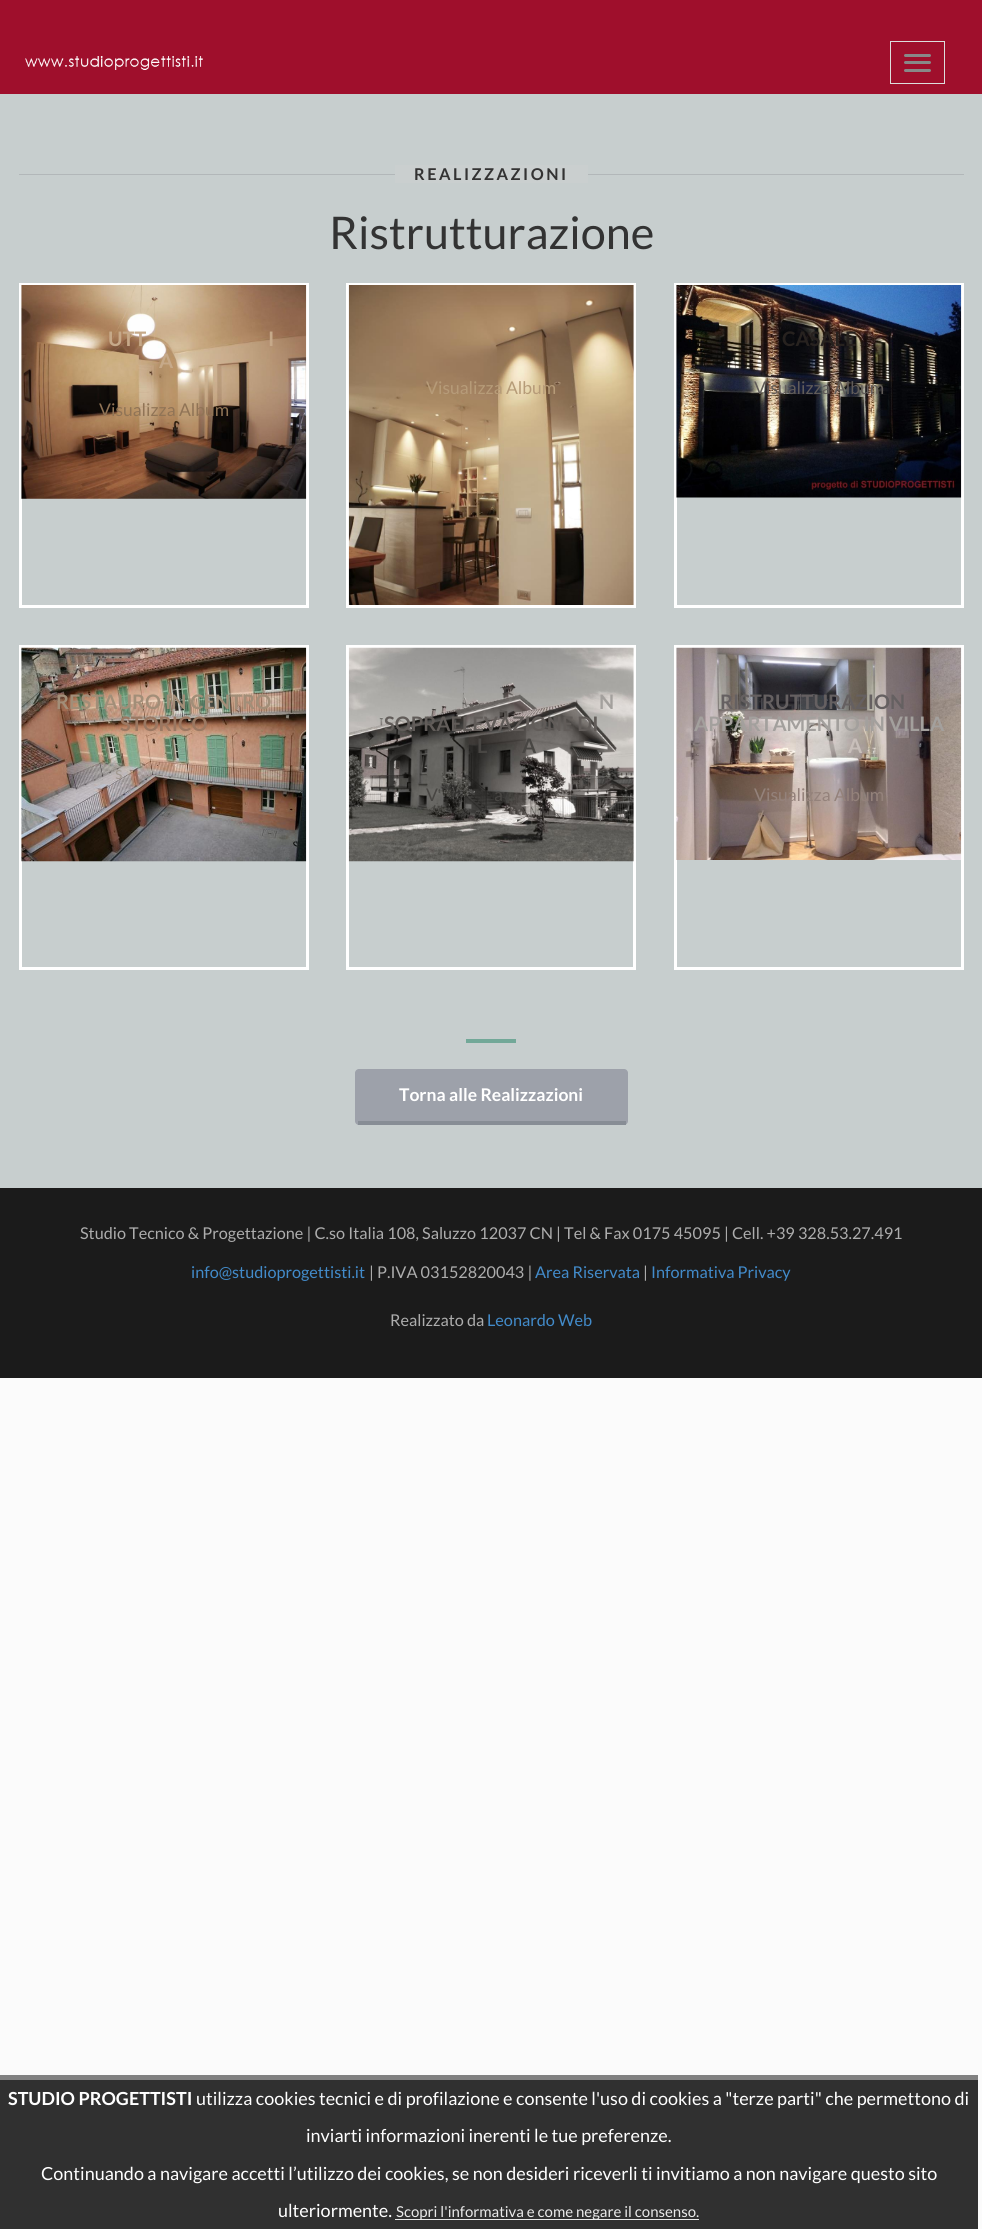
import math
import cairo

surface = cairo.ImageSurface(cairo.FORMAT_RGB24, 982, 2229)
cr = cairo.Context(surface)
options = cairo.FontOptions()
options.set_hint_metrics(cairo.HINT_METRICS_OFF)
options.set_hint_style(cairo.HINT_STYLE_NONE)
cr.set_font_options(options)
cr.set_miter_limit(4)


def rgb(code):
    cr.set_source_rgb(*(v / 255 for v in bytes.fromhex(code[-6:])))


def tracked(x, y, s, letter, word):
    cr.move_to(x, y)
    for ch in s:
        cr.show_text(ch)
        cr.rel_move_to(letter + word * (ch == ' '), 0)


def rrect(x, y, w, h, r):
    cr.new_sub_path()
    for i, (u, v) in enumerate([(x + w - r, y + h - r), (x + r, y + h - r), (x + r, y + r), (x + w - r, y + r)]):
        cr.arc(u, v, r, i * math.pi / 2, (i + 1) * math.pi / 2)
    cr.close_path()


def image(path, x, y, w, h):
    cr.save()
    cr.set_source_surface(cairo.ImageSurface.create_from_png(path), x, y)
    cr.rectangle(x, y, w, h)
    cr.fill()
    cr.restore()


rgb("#fbfbfb")
cr.paint()
rgb("#9f0f2c")
cr.rectangle(0, 0, 982, 94)
cr.fill()
image("img/1.png", 25, 56, 178, 14)
cr.rectangle(890.5, 41.5, 54, 42)
rgb("#dddddd")
cr.set_line_width(1)
cr.stroke()
rgb("#888888")
rrect(904, 54, 27, 3, 1.5)
cr.fill()
rrect(904, 61, 27, 3, 1.5)
cr.fill()
rrect(904, 69, 27, 3, 1.5)
cr.fill()
for x, y, w, h, color in [
    (0, 94, 982, 1094, "#c7cece"),
    (19, 174, 945, 1, "#b2b7b9"),
    (395, 165, 193, 18, "#cacfcf"),
]:
    rgb(color)
    cr.rectangle(x, y, w, h)
    cr.fill()
cr.rectangle(20.5, 284.5, 287, 322)
rgb("#ffffff")
cr.set_line_width(3)
cr.stroke()
image("img/2.png", 21, 285, 286, 214)
cr.rectangle(347.5, 284.5, 287, 322)
cr.stroke()
image("img/3.png", 348, 285, 286, 320)
cr.rectangle(675.5, 284.5, 287, 322)
cr.stroke()
image("img/4.png", 676, 285, 286, 213)
cr.rectangle(20.5, 646.5, 287, 322)
cr.stroke()
image("img/5.png", 21, 647, 286, 215)
cr.rectangle(347.5, 646.5, 287, 322)
cr.stroke()
image("img/6.png", 348, 647, 286, 215)
cr.rectangle(675.5, 646.5, 287, 322)
cr.stroke()
image("img/7.png", 676, 647, 286, 213)
rgb("#72a898")
cr.rectangle(466, 1039, 50, 4)
cr.fill()
rgb("#9da1aa")
rrect(355, 1069, 273, 56, 4)
cr.fill()
for x, y, w, h, color in [
    (358, 1121, 268, 4, "#878d95"),
    (0, 1188, 982, 190, "#1b1b1b"),
    (0, 2080, 978, 149, "#303030"),
    (0, 2075, 978, 5, "#818181"),
    (395, 2219, 304, 1, "#eaeaea"),
]:
    rgb(color)
    cr.rectangle(x, y, w, h)
    cr.fill()
cr.select_font_face("Lato", cairo.FONT_SLANT_NORMAL, cairo.FONT_WEIGHT_BOLD)
cr.set_font_size(16.25)
rgb("#333333")
tracked(414, 180, "REALIZZAZIONI", 2.5, 0)
cr.select_font_face("Lato")
cr.set_font_size(45)
cr.move_to(329, 249)
cr.show_text("Ristrutturazione")
cr.select_font_face("Lato", cairo.FONT_SLANT_NORMAL, cairo.FONT_WEIGHT_BOLD)
cr.set_font_size(20)
rgb("#c6a989")
for x, y, s in [
    (108, 346, "UTT"),
    (268, 346, "I"),
    (159, 368, "A"),
]:
    cr.move_to(x, y)
    cr.show_text(s)
cr.select_font_face("Lato")
cr.set_font_size(17.5)
rgb("#907456")
cr.move_to(99, 416)
cr.show_text("Visualizza Album")
rgb("#b69b78")
cr.move_to(426, 394)
cr.show_text("Visualizza Album")
cr.select_font_face("Lato", cairo.FONT_SLANT_NORMAL, cairo.FONT_WEIGHT_BOLD)
cr.set_font_size(20)
rgb("#27221f")
cr.move_to(782, 346)
cr.show_text("CASALE")
cr.select_font_face("Lato")
cr.set_font_size(17.5)
rgb("#615c59")
cr.move_to(754, 394)
cr.show_text("Visualizza Album")
cr.select_font_face("Lato", cairo.FONT_SLANT_NORMAL, cairo.FONT_WEIGHT_BOLD)
cr.set_font_size(20)
rgb("#a28e78")
cr.move_to(56, 709)
cr.show_text("RESTAURO IN CENTRO")
rgb("#9b7862")
cr.move_to(120, 731)
cr.show_text("STORICO")
cr.select_font_face("Lato")
cr.set_font_size(17.5)
rgb("#a29991")
cr.move_to(115, 779)
cr.show_text("s")
cr.select_font_face("Lato", cairo.FONT_SLANT_NORMAL, cairo.FONT_WEIGHT_BOLD)
cr.set_font_size(20)
rgb("#a3a09d")
cr.move_to(599, 709)
cr.show_text("N")
rgb("#615c59")
cr.move_to(384, 731)
cr.show_text("SOPRAELEVAZIONE DI")
rgb("#484643")
cr.move_to(477, 753)
cr.show_text("L")
cr.move_to(522, 753)
cr.show_text("A")
cr.select_font_face("Lato")
cr.set_font_size(17.5)
cr.move_to(426, 801)
cr.show_text("V")
cr.move_to(494, 801)
cr.show_text("a")
cr.select_font_face("Lato", cairo.FONT_SLANT_NORMAL, cairo.FONT_WEIGHT_BOLD)
cr.set_font_size(20)
rgb("#656061")
cr.move_to(720, 709)
cr.show_text("RISTRUTTURAZION")
rgb("#a3a09d")
cr.move_to(694, 731)
cr.show_text("APPARTAMENTO IN VILLA")
rgb("#c8bfba")
cr.move_to(848, 753)
cr.show_text("A")
cr.select_font_face("Lato")
cr.set_font_size(17.5)
rgb("#94827b")
cr.move_to(754, 801)
cr.show_text("Visualizza Album")
cr.select_font_face("Lato", cairo.FONT_SLANT_NORMAL, cairo.FONT_WEIGHT_BOLD)
rgb("#ffffff")
cr.move_to(399, 1101)
cr.show_text("Torna alle Realizzazioni")
cr.select_font_face("Lato")
cr.set_font_size(16.25)
rgb("#adadad")
cr.move_to(80, 1239)
cr.show_text("Studio Tecnico & Progettazione | C.so Italia 108, Saluzzo 12037 CN | Tel & Fax 0175 45095 | Cell. +39 328.53.27.491")
rgb("#428bca")
cr.move_to(191, 1278)
cr.show_text("info@studioprogettisti.it")
rgb("#adadad")
cr.move_to(369, 1278)
cr.show_text("| P.IVA 03152820043 |")
rgb("#428bca")
cr.move_to(535, 1278)
cr.show_text("Area Riservata")
rgb("#adadad")
cr.move_to(643, 1278)
cr.show_text("|")
rgb("#428bca")
cr.move_to(651, 1278)
cr.show_text("Informativa Privacy")
rgb("#adadad")
cr.move_to(390, 1326)
cr.show_text("Realizzato da")
rgb("#428bca")
cr.move_to(487, 1326)
cr.show_text("Leonardo Web")
cr.select_font_face("Lato", cairo.FONT_SLANT_NORMAL, cairo.FONT_WEIGHT_BOLD)
cr.set_font_size(18)
rgb("#ffffff")
cr.move_to(8, 2105)
cr.show_text("STUDIO PROGETTISTI")
cr.select_font_face("Lato")
for x, y, s in [
    (196, 2105, "utilizza cookies tecnici e di profilazione e consente l'uso di cookies a \"terze parti\" che permettono di"),
    (306, 2142, "inviarti informazioni inerenti le tue preferenze."),
    (41, 2180, "Continuando a navigare accetti l’utilizzo dei cookies, se non desideri riceverli ti invitiamo a non navigare questo sito"),
    (278, 2217, "ulteriormente."),
]:
    cr.move_to(x, y)
    cr.show_text(s)
cr.set_font_size(15)
rgb("#eaeaea")
cr.move_to(396, 2217)
cr.show_text("Scopri l'informativa e come negare il consenso.")
surface.write_to_png("page.png")
